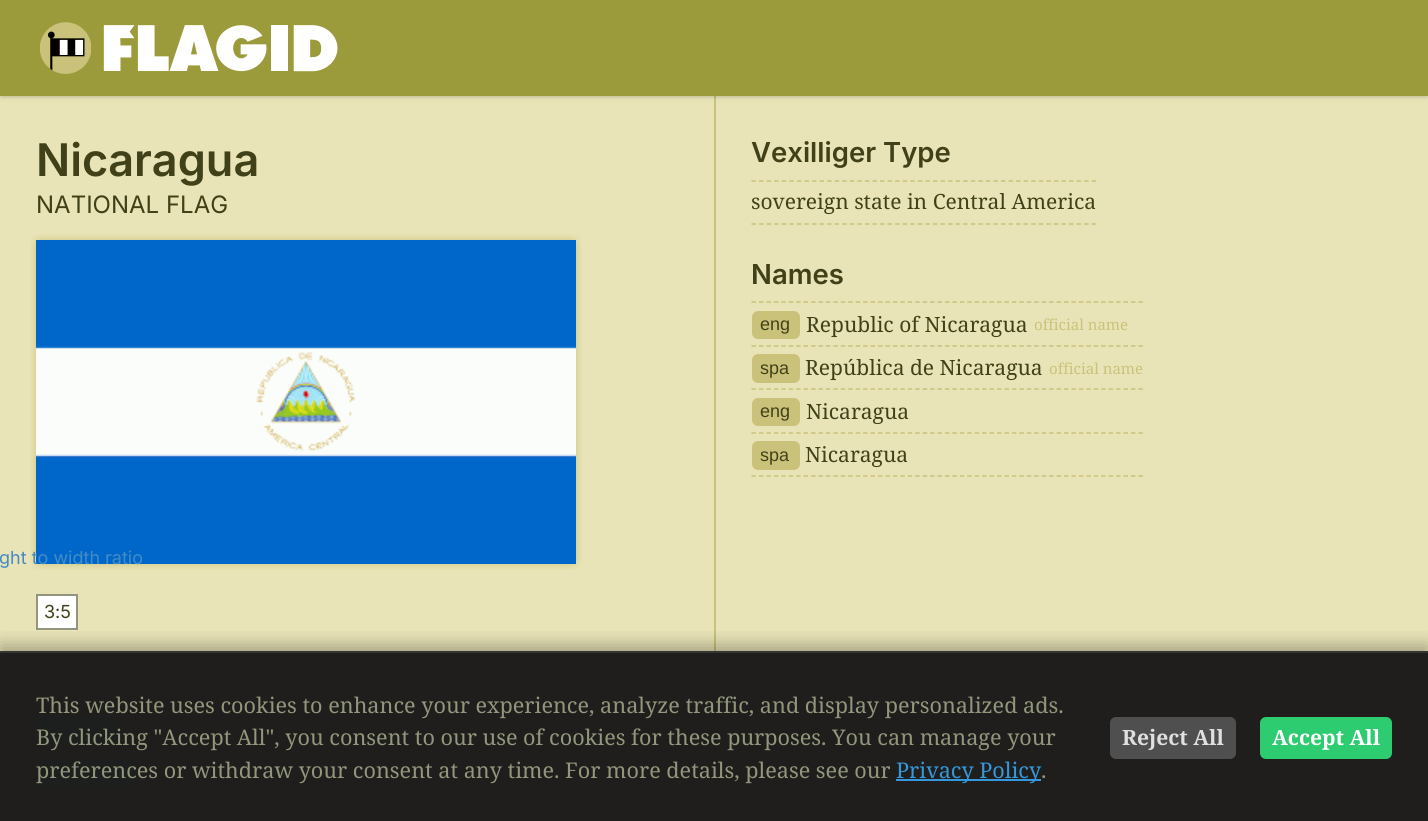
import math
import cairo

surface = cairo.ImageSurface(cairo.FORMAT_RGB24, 1428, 821)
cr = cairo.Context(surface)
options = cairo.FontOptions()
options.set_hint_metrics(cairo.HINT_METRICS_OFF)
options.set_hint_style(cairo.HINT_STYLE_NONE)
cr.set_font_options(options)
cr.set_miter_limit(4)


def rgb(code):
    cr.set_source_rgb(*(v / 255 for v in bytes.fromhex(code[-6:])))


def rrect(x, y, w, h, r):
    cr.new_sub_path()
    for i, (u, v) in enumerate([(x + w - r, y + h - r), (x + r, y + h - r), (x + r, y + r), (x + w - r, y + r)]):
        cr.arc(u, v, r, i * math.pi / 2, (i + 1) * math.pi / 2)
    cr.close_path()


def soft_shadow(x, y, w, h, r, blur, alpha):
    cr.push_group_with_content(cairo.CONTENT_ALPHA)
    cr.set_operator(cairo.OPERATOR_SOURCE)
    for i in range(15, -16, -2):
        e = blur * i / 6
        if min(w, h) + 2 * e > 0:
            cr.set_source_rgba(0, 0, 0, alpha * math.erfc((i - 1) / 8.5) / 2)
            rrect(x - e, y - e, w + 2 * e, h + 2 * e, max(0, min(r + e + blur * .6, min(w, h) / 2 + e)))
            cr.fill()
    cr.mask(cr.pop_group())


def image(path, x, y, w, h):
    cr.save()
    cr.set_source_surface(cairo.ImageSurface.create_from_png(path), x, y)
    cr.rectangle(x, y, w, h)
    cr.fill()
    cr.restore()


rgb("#cac27b")
cr.paint()
rgb("#e9e4b7")
cr.rectangle(0, 96, 714, 555)
cr.fill()
cr.rectangle(716, 96, 712, 555)
cr.fill()
rgb("#000000")
soft_shadow(2, 3, 1425, 93, 0, 1.5, 0.1)
soft_shadow(0, 2, 1428, 96, 0, 2, 0.1)
rgb("#9c9b3c")
cr.rectangle(0, 0, 1428, 96)
cr.fill()
image("img/1.png", 40, 22, 298, 52)
for x, y, w, h, color in [
    (714, 653, 2, 168, "#1d1d19"),
    (714, 651, 2, 2, "#343430"),
    (0, 653, 714, 168, "#1f1e1c"),
    (0, 651, 714, 2, "#353533"),
]:
    rgb(color)
    cr.rectangle(x, y, w, h)
    cr.fill()
image("img/2.png", 30, 234, 552, 336)
rgb("#ffffff")
cr.rectangle(37, 595, 40, 34)
cr.fill_preserve()
rgb("#91967c")
cr.stroke()
rgb("#1c1f1d")
rrect(36, 716, 84, 28, 6)
cr.fill()
rrect(36, 759, 101, 29, 6)
cr.fill()
rgb("#1f1e1c")
cr.rectangle(716, 653, 712, 168)
cr.fill()
rgb("#353533")
cr.rectangle(716, 651, 712, 2)
cr.fill()
cr.new_path()
cr.move_to(751.5, 181)
cr.line_to(1096.5, 181)
rgb("#cac27b")
cr.set_line_width(1.5)
cr.set_dash([4.5, 3.06])
cr.stroke()
cr.new_path()
cr.move_to(751.5, 224)
cr.line_to(1096.5, 224)
cr.stroke()
cr.new_path()
cr.move_to(751.5, 302)
cr.line_to(1143, 302)
cr.set_dash([4.5, 2.94])
cr.stroke()
cr.new_path()
cr.move_to(751.5, 346)
cr.line_to(1143, 346)
cr.stroke()
rrect(752, 311, 48, 28, 6)
cr.fill()
cr.new_path()
cr.move_to(751.5, 389)
cr.line_to(1143, 389)
cr.stroke()
rrect(752, 354, 48, 29, 6)
cr.fill()
cr.new_path()
cr.move_to(751.5, 433)
cr.line_to(1143, 433)
cr.stroke()
rrect(752, 398, 48, 28, 6)
cr.fill()
cr.new_path()
cr.move_to(751.5, 476)
cr.line_to(1143, 476)
cr.stroke()
rrect(752, 441, 48, 29, 6)
cr.fill()
cr.save()
cr.rectangle(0, 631, 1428, 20)
cr.clip()
rgb("#000000")
soft_shadow(0, 645, 1428, 171, 0, 9, 0.3)
cr.restore()
rgb("#3498db")
cr.rectangle(896, 779, 145, 2)
cr.fill()
rgb("#4f4f4f")
rrect(1110, 717, 126, 42, 6)
cr.fill()
rgb("#2ecc71")
rrect(1260, 717, 132, 42, 6)
cr.fill()
cr.select_font_face("Inter SemiBold")
cr.set_font_size(45)
rgb("#414119")
cr.move_to(36, 176)
cr.show_text("Nicaragua")
cr.select_font_face("Inter")
cr.set_font_size(24)
cr.move_to(36, 213)
cr.show_text("NATIONAL FLAG")
cr.set_font_size(18)
rgb("#448bc3")
cr.move_to(-1, 564)
cr.show_text("ght to width ratio")
rgb("#414119")
cr.move_to(44, 618)
cr.show_text("3:5")
cr.select_font_face("Inter SemiBold")
cr.set_font_size(27.5)
cr.move_to(751, 162)
cr.show_text("Vexilliger Type")
cr.select_font_face("Noto Serif")
cr.set_font_size(21)
cr.move_to(751, 209)
cr.show_text("sovereign state in Central America")
cr.select_font_face("Inter SemiBold")
cr.set_font_size(27.5)
cr.move_to(751, 284)
cr.show_text("Names")
cr.select_font_face("Liberation Sans")
cr.set_font_size(18)
cr.move_to(760, 330)
cr.show_text("eng")
cr.select_font_face("Noto Serif")
cr.set_font_size(21)
cr.move_to(806, 332)
cr.show_text("Republic of Nicaragua")
cr.set_font_size(15)
rgb("#cac27b")
cr.move_to(1034, 330)
cr.show_text("official name")
cr.select_font_face("Liberation Sans")
cr.set_font_size(18)
rgb("#414119")
cr.move_to(760, 374)
cr.show_text("spa")
cr.select_font_face("Noto Serif")
cr.set_font_size(21)
cr.move_to(805, 375)
cr.show_text("República de Nicaragua")
cr.set_font_size(15)
rgb("#cac27b")
cr.move_to(1049, 374)
cr.show_text("official name")
cr.select_font_face("Liberation Sans")
cr.set_font_size(18)
rgb("#414119")
cr.move_to(760, 417)
cr.show_text("eng")
cr.select_font_face("Noto Serif")
cr.set_font_size(21)
cr.move_to(806, 419)
cr.show_text("Nicaragua")
cr.select_font_face("Liberation Sans")
cr.set_font_size(18)
cr.move_to(760, 461)
cr.show_text("spa")
cr.select_font_face("Noto Serif")
cr.set_font_size(21)
cr.move_to(805, 462)
cr.show_text("Nicaragua")
cr.set_font_size(21.6)
rgb("#91967c")
for x, y, s in [
    (36, 713, "This website uses cookies to enhance your experience, analyze traffic, and display personalized ads."),
    (36, 745, "By clicking \"Accept All\", you consent to our use of cookies for these purposes. You can manage your"),
    (36, 778, "preferences or withdraw your consent at any time. For more details, please see our"),
]:
    cr.move_to(x, y)
    cr.show_text(s)
rgb("#3498db")
cr.move_to(896, 778)
cr.show_text("Privacy Policy")
rgb("#91967c")
cr.move_to(1041, 778)
cr.show_text(".")
cr.select_font_face("Noto Serif", cairo.FONT_SLANT_NORMAL, cairo.FONT_WEIGHT_BOLD)
cr.set_font_size(21)
rgb("#e0e0e0")
cr.move_to(1122, 745)
cr.show_text("Reject All")
rgb("#ffffff")
cr.move_to(1272, 745)
cr.show_text("Accept All")
surface.write_to_png("page.png")
